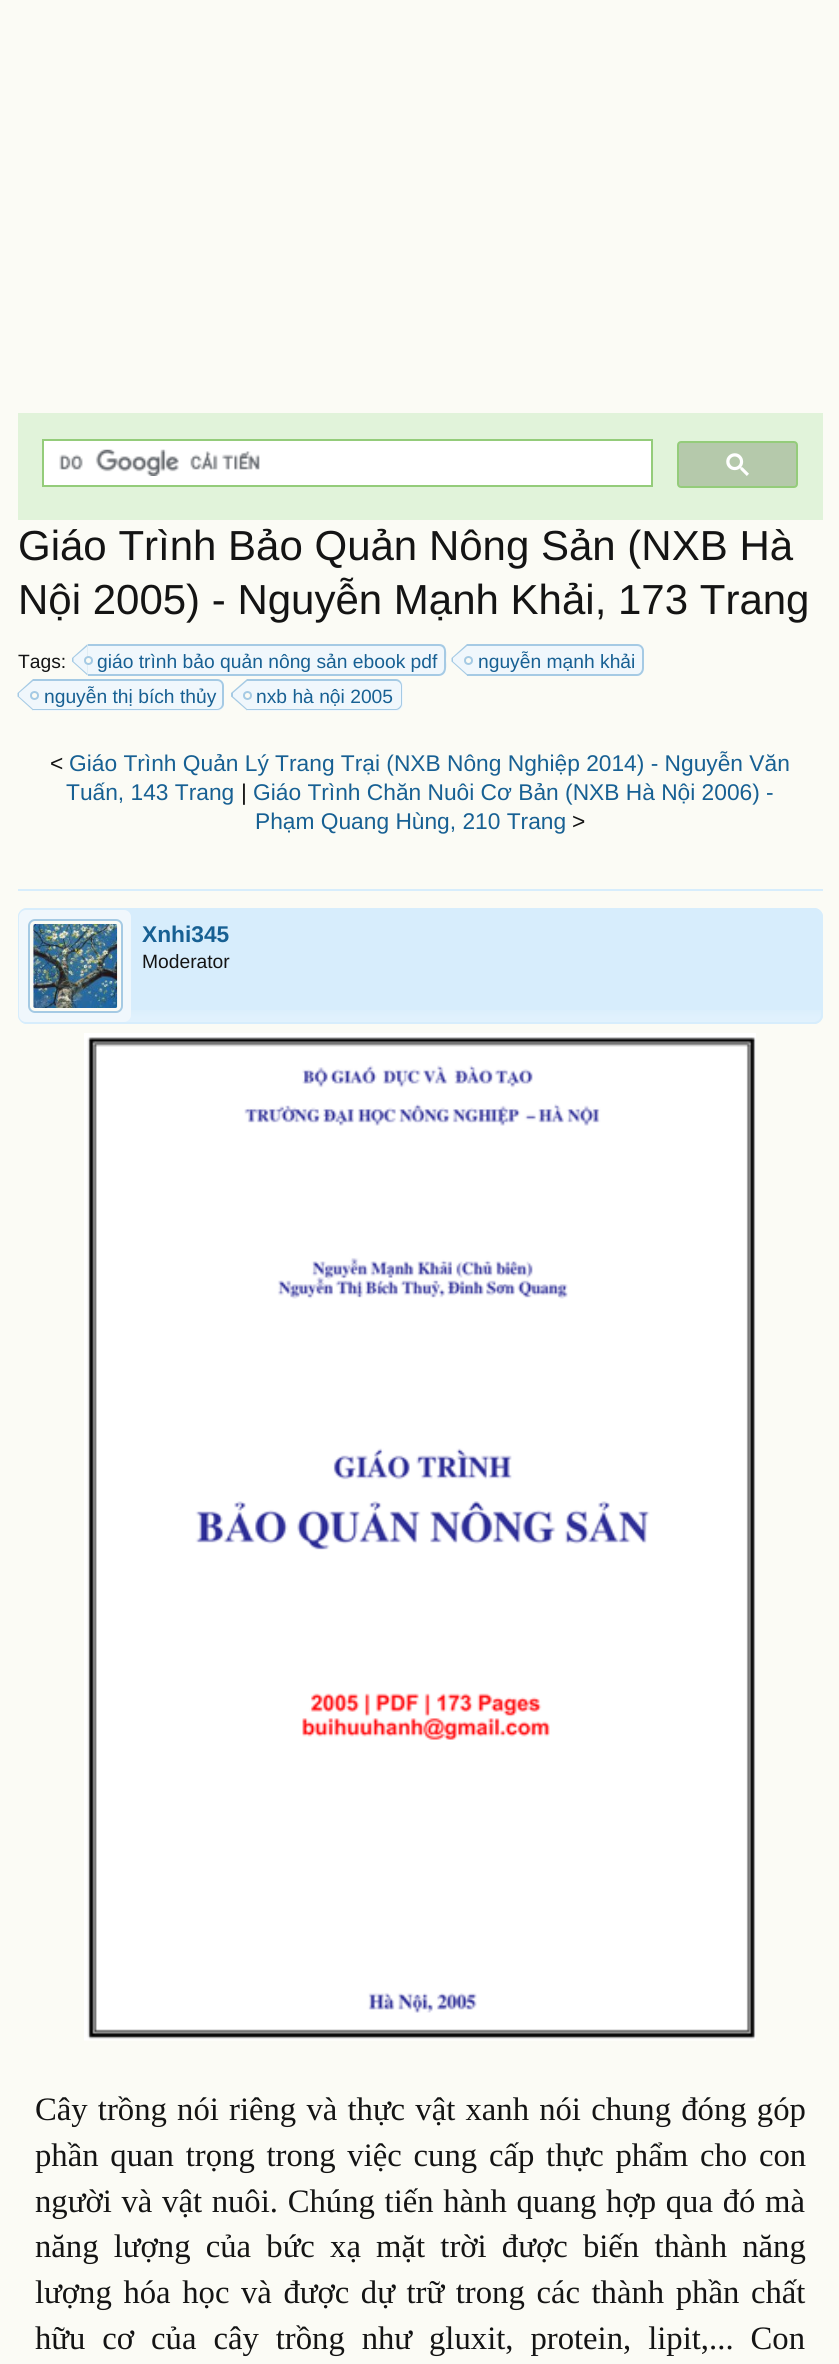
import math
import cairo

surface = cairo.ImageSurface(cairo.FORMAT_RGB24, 839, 2364)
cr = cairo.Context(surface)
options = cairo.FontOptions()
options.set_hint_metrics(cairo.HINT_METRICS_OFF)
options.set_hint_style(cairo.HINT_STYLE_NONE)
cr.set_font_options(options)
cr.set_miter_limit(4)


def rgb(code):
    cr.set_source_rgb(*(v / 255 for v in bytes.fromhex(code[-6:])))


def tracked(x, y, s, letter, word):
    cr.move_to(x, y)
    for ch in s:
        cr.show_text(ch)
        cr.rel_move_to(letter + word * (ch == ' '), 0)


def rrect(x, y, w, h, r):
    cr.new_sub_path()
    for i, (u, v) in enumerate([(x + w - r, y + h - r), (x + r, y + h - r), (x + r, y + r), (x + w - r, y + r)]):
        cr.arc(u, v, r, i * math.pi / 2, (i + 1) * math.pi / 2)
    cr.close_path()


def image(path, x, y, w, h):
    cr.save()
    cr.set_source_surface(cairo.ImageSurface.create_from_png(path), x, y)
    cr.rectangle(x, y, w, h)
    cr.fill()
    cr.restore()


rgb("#fbfbf5")
cr.paint()
rgb("#e1f3da")
cr.rectangle(18, 413, 805, 107)
cr.fill()
rgb("#ffffff")
cr.rectangle(43, 440, 609, 46)
cr.fill_preserve()
rgb("#94cc7a")
cr.stroke()
image("img/1.png", 59, 449, 201, 27)
rgb("#b5c9ab")
rrect(678, 442, 119, 45, 3)
cr.fill_preserve()
rgb("#94cc7a")
cr.stroke()
image("img/2.png", 726, 453, 23, 23)
rgb("#f0f7fc")
cr.new_path()
cr.move_to(88, 644)
cr.line_to(439, 644)
cr.curve_to(443, 644, 446, 647, 446, 651)
cr.line_to(446, 669)
cr.curve_to(446, 673, 443, 676, 439, 676)
cr.line_to(88, 676)
cr.close_path()
cr.fill()
rgb("#a5cae4")
cr.set_fill_rule(cairo.FILL_RULE_EVEN_ODD)
cr.new_path()
cr.move_to(88, 644)
cr.line_to(439, 644)
cr.curve_to(448, 644, 446, 654, 446, 660)
cr.curve_to(446, 665, 448, 675, 439, 676)
cr.line_to(88, 676)
cr.close_path()
cr.move_to(88, 646)
cr.line_to(439, 646)
cr.curve_to(442, 646, 444, 648, 444, 651)
cr.line_to(444, 668)
cr.curve_to(444, 671, 442, 674, 439, 674)
cr.line_to(88, 674)
cr.close_path()
cr.fill()
cr.set_fill_rule(cairo.FILL_RULE_WINDING)
cr.new_path()
cr.move_to(87.5, 644)
cr.line_to(87.5, 675.5)
cr.line_to(72, 661.5)
cr.line_to(72, 658)
cr.close_path()
cr.fill()
rgb("#f0f7fc")
cr.new_path()
cr.move_to(87.5, 646)
cr.line_to(87.5, 674)
cr.line_to(73.5, 661.5)
cr.line_to(73.5, 658)
cr.close_path()
cr.fill()
rgb("#fbfbf5")
cr.arc(88.5, 660.5, 3.5, 0, 2 * math.pi)
cr.fill_preserve()
rgb("#a5cae4")
cr.stroke()
rgb("#f0f7fc")
cr.new_path()
cr.move_to(467, 644)
cr.line_to(637, 644)
cr.curve_to(641, 644, 644, 647, 644, 651)
cr.line_to(644, 669)
cr.curve_to(644, 673, 641, 676, 637, 676)
cr.line_to(467, 676)
cr.close_path()
cr.fill()
rgb("#a5cae4")
cr.set_fill_rule(cairo.FILL_RULE_EVEN_ODD)
cr.new_path()
cr.move_to(467, 644)
cr.line_to(637, 644)
cr.curve_to(641, 644, 644, 647, 644, 651)
cr.line_to(644, 668)
cr.curve_to(644, 672, 641, 676, 637, 676)
cr.line_to(467, 676)
cr.close_path()
cr.move_to(467, 646)
cr.line_to(637, 646)
cr.curve_to(640, 646, 642, 648, 642, 651)
cr.line_to(642, 668)
cr.curve_to(642, 671, 640, 674, 637, 674)
cr.line_to(467, 674)
cr.close_path()
cr.fill()
cr.set_fill_rule(cairo.FILL_RULE_WINDING)
cr.new_path()
cr.move_to(467, 644)
cr.line_to(467, 675.5)
cr.line_to(451.5, 661.5)
cr.line_to(451.5, 658)
cr.close_path()
cr.fill()
rgb("#f0f7fc")
cr.new_path()
cr.move_to(467, 646)
cr.line_to(467, 674)
cr.line_to(453, 661.5)
cr.line_to(453, 658)
cr.close_path()
cr.fill()
rgb("#fbfbf5")
cr.arc(468.5, 660.5, 3.5, 0, 2 * math.pi)
cr.fill_preserve()
rgb("#a5cae4")
cr.stroke()
rgb("#f0f7fc")
cr.new_path()
cr.move_to(33, 679)
cr.line_to(217, 679)
cr.curve_to(221, 679, 224, 682, 224, 686)
cr.line_to(224, 704)
cr.curve_to(224, 708, 221, 711, 217, 711)
cr.line_to(33, 711)
cr.close_path()
cr.fill()
rgb("#a5cae4")
cr.set_fill_rule(cairo.FILL_RULE_EVEN_ODD)
cr.new_path()
cr.move_to(33, 679)
cr.line_to(217, 679)
cr.curve_to(221, 679, 224, 682, 224, 686)
cr.line_to(224, 704)
cr.curve_to(224, 707, 221, 710, 217, 710)
cr.line_to(33, 710)
cr.close_path()
cr.move_to(33, 681)
cr.line_to(217, 681)
cr.curve_to(220, 681, 222, 683, 222, 686)
cr.line_to(222, 704)
cr.curve_to(222, 706, 220, 709, 217, 709)
cr.line_to(33, 709)
cr.close_path()
cr.fill()
cr.set_fill_rule(cairo.FILL_RULE_WINDING)
cr.new_path()
cr.move_to(33, 679)
cr.line_to(33, 710.5)
cr.line_to(17.5, 696.5)
cr.line_to(17.5, 693)
cr.close_path()
cr.fill()
rgb("#f0f7fc")
cr.new_path()
cr.move_to(33, 681)
cr.line_to(33, 709)
cr.line_to(19, 696.5)
cr.line_to(19, 693)
cr.close_path()
cr.fill()
rgb("#fbfbf5")
cr.arc(34.5, 695.5, 3.5, 0, 2 * math.pi)
cr.fill_preserve()
rgb("#a5cae4")
cr.stroke()
rgb("#f0f7fc")
cr.new_path()
cr.move_to(247, 679)
cr.line_to(396, 679)
cr.curve_to(400, 679, 403, 682, 403, 686)
cr.line_to(403, 704)
cr.curve_to(403, 708, 400, 711, 396, 711)
cr.line_to(247, 711)
cr.close_path()
cr.fill()
rgb("#a5cae4")
cr.set_fill_rule(cairo.FILL_RULE_EVEN_ODD)
cr.new_path()
cr.move_to(247, 679)
cr.line_to(396, 679)
cr.curve_to(399, 679, 402, 682, 402, 686)
cr.line_to(402, 704)
cr.curve_to(402, 707, 399, 710, 396, 710)
cr.line_to(247, 710)
cr.close_path()
cr.move_to(247, 681)
cr.line_to(396, 681)
cr.curve_to(398, 681, 401, 683, 401, 686)
cr.line_to(401, 704)
cr.curve_to(401, 706, 398, 709, 396, 709)
cr.line_to(247, 709)
cr.close_path()
cr.fill()
cr.set_fill_rule(cairo.FILL_RULE_WINDING)
cr.new_path()
cr.move_to(247, 679)
cr.line_to(247, 710.5)
cr.line_to(231, 696.5)
cr.line_to(231, 693)
cr.close_path()
cr.fill()
rgb("#f0f7fc")
cr.new_path()
cr.move_to(247, 681)
cr.line_to(247, 709)
cr.line_to(233, 696.5)
cr.line_to(233, 693)
cr.close_path()
cr.fill()
rgb("#fbfbf5")
cr.arc(247.5, 695.5, 3.5, 0, 2 * math.pi)
cr.fill_preserve()
rgb("#a5cae4")
cr.stroke()
rgb("#d7edfc")
cr.rectangle(18, 889, 805, 2)
cr.fill()
rrect(18, 908, 805, 116, 9)
cr.fill()
image("img/3.png", 18, 1010, 803, 12)
rrect(19, 909, 803, 114, 8)
cr.stroke()
rgb("#f0f7fc")
rrect(19, 910, 112, 112, 7)
cr.fill()
rgb("#fbfbf5")
rrect(29, 920, 93, 92, 6)
cr.fill_preserve()
rgb("#a5cae4")
cr.stroke()
image("img/4.png", 33, 924, 85, 84)
image("img/5.png", 84, 1033, 672, 1008)
cr.select_font_face("Liberation Sans")
cr.set_font_size(42)
rgb("#141414")
cr.move_to(18, 560)
cr.show_text("Giáo Trình Bảo Quản Nông Sản (NXB Hà")
cr.move_to(18, 614)
cr.show_text("Nội 2005) - Nguyễn Mạnh Khải, 173 Trang")
cr.set_font_size(19.25)
cr.move_to(18, 668)
cr.show_text("Tags:")
rgb("#176093")
for x, y, s in [
    (97, 668, "giáo trình bảo quản nông sản ebook pdf"),
    (478, 668, "nguyễn mạnh khải"),
    (44, 703, "nguyễn thị bích thủy"),
    (256, 703, "nxb hà nội 2005"),
]:
    cr.move_to(x, y)
    cr.show_text(s)
cr.set_font_size(22.75)
rgb("#141414")
cr.move_to(50, 771)
cr.show_text("<")
rgb("#176093")
cr.move_to(69, 771)
cr.show_text("Giáo Trình Quản Lý Trang Trại (NXB Nông Nghiệp 2014) - Nguyễn Văn")
cr.move_to(66, 800)
cr.show_text("Tuấn, 143 Trang")
rgb("#141414")
cr.move_to(241, 800)
cr.show_text("|")
rgb("#176093")
cr.move_to(253, 800)
cr.show_text("Giáo Trình Chăn Nuôi Cơ Bản (NXB Hà Nội 2006) -")
cr.move_to(255, 829)
cr.show_text("Phạm Quang Hùng, 210 Trang")
rgb("#141414")
cr.move_to(572, 829)
cr.show_text(">")
cr.select_font_face("Liberation Sans", cairo.FONT_SLANT_NORMAL, cairo.FONT_WEIGHT_BOLD)
rgb("#176093")
cr.move_to(142, 942)
cr.show_text("Xnhi345")
cr.select_font_face("Liberation Sans")
cr.set_font_size(19.25)
rgb("#141414")
cr.move_to(142, 968)
cr.show_text("Moderator")
cr.select_font_face("Liberation Serif")
cr.set_font_size(32.7)
tracked(35, 2120, "Cây trồng nói riêng và thực vật xanh nói chung đóng góp", 0, 2)
tracked(35, 2166, "phần quan trọng trong việc cung cấp thực phẩm cho con", 0, 3.6)
tracked(35, 2212, "người và vật nuôi. Chúng tiến hành quang hợp qua đó mà", 0, 1.5)
tracked(35, 2257, "năng lượng của bức xạ mặt trời được biến thành năng", 0, 7)
tracked(35, 2303, "lượng hóa học và được dự trữ trong các thành phần chất", 0, 3.4)
tracked(35, 2349, "hữu cơ của cây trồng như gluxit, protein, lipit,... Con", 0, 8.75)
surface.write_to_png("page.png")
